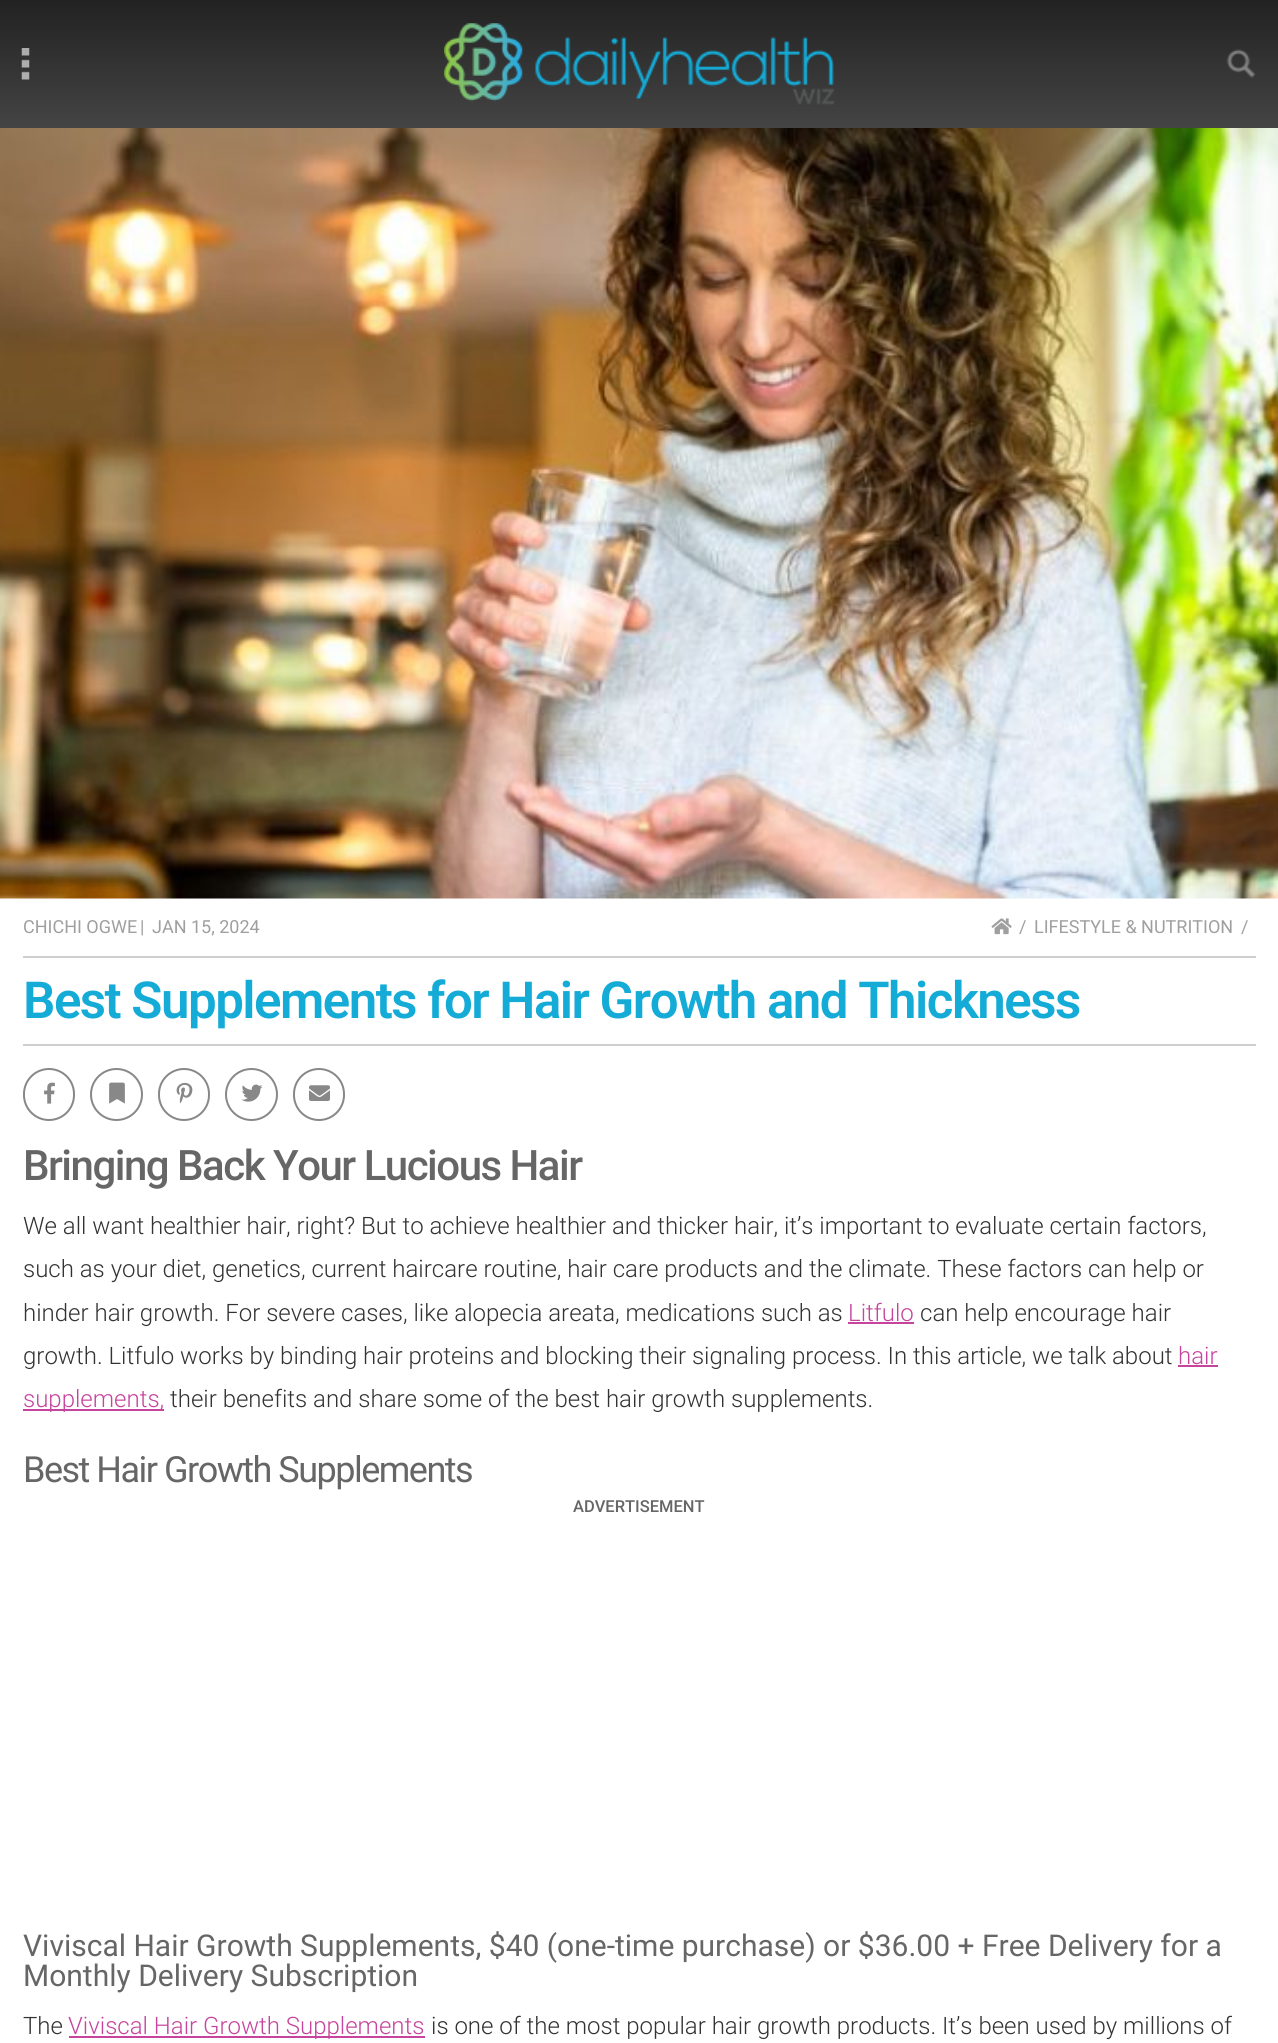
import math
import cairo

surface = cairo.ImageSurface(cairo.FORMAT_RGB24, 1278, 2043)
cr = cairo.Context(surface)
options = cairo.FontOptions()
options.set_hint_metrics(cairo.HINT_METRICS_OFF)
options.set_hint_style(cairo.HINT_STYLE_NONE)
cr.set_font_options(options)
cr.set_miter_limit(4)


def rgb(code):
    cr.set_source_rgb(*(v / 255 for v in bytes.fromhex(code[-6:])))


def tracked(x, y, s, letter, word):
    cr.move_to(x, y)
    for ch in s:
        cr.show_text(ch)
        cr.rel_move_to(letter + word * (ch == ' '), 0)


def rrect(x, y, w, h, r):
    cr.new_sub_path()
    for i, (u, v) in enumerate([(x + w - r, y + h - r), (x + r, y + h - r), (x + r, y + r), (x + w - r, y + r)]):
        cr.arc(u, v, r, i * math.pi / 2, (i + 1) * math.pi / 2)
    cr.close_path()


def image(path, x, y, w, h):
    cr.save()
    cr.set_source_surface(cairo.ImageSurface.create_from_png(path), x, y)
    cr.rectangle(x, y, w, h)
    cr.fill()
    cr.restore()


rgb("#ffffff")
cr.paint()
gradient = cairo.LinearGradient(639, 0, 639, 128)
gradient.add_color_stop_rgba(0, 0.133, 0.133, 0.133, 1)
gradient.add_color_stop_rgba(1, 0.267, 0.267, 0.267, 1)
cr.set_source(gradient)
cr.rectangle(0, 0, 1278, 128)
cr.fill()
image("img/1.png", 21, 48, 9, 32)
image("img/2.png", 444, 23, 390, 82)
image("img/3.png", 1226, 49, 30, 29)
image("img/4.png", 0, 128, 1278, 771)
image("img/5.png", 991, 918, 21, 17)
rgb("#cfcfcf")
cr.rectangle(23, 956, 1233, 2)
cr.fill()
cr.rectangle(23, 1044, 1233, 2)
cr.fill()
rrect(24, 1069, 50, 51, 25)
rgb("#888888")
cr.stroke()
image("img/6.png", 44, 1082, 11, 22)
cr.arc(116.5, 1094.5, 25.5, 0, 2 * math.pi)
cr.stroke()
image("img/7.png", 109, 1082, 16, 22)
rrect(159, 1069, 50, 51, 25)
cr.stroke()
image("img/8.png", 176, 1082, 17, 22)
cr.arc(251.5, 1094.5, 25.5, 0, 2 * math.pi)
cr.stroke()
image("img/9.png", 241, 1084, 22, 18)
rrect(294, 1069, 50, 51, 25)
cr.stroke()
image("img/10.png", 309, 1085, 21, 16)
for x, y, w, h, color in [
    (848, 1322, 66, 2, "#c6449d"),
    (1178, 1365, 40, 2, "#c6449d"),
    (23, 1409, 141, 2, "#c6449d"),
    (69, 2036, 356, 2, "#c6449d"),
]:
    rgb(color)
    cr.rectangle(x, y, w, h)
    cr.fill()
cr.select_font_face("Roboto")
cr.set_font_size(18)
rgb("#9f9f9f")
for x, y, s in [
    (23, 933, "CHICHI OGWE"),
    (140, 933, "|"),
    (152, 933, "JAN 15, 2024"),
    (1019, 933, "/"),
    (1034, 933, "LIFESTYLE & NUTRITION"),
    (1241, 933, "/"),
]:
    cr.move_to(x, y)
    cr.show_text(s)
cr.select_font_face("Roboto SemiBold")
cr.set_font_size(51)
rgb("#15abd7")
tracked(23, 1018, "Best Supplements for Hair Growth and Thickness", -1.5, 0)
cr.select_font_face("Roboto Medium")
cr.set_font_size(42)
rgb("#666666")
tracked(23, 1180, "Bringing Back Your Lucious Hair", -1.5, 0)
cr.select_font_face("Roboto Light")
cr.set_font_size(24)
rgb("#333333")
for x, y, s in [
    (23, 1234, "We all want healthier hair, right? But to achieve healthier and thicker hair, it’s important to evaluate certain factors,"),
    (23, 1277, "such as your diet, genetics, current haircare routine, hair care products and the climate. These factors can help or"),
    (23, 1321, "hinder hair growth. For severe cases, like alopecia areata, medications such as"),
]:
    cr.move_to(x, y)
    cr.show_text(s)
rgb("#c6449d")
cr.move_to(848, 1321)
cr.show_text("Litfulo")
rgb("#333333")
cr.move_to(920, 1321)
cr.show_text("can help encourage hair")
cr.move_to(23, 1364)
cr.show_text("growth. Litfulo works by binding hair proteins and blocking their signaling process. In this article, we talk about")
rgb("#c6449d")
cr.move_to(1178, 1364)
cr.show_text("hair")
cr.move_to(23, 1407)
cr.show_text("supplements,")
rgb("#333333")
cr.move_to(170, 1407)
cr.show_text("their benefits and share some of the best hair growth supplements.")
cr.select_font_face("Roboto")
cr.set_font_size(36)
rgb("#666666")
tracked(23, 1482, "Best Hair Growth Supplements", -1.5, 0)
cr.select_font_face("Roboto Medium")
cr.set_font_size(16.5)
cr.move_to(573, 1512)
cr.show_text("ADVERTISEMENT")
cr.select_font_face("Roboto")
cr.set_font_size(30)
cr.move_to(23, 1956)
cr.show_text("Viviscal Hair Growth Supplements, $40 (one-time purchase) or $36.00 + Free Delivery for a")
cr.move_to(23, 1986)
cr.show_text("Monthly Delivery Subscription")
cr.select_font_face("Roboto Light")
cr.set_font_size(24)
rgb("#333333")
cr.move_to(23, 2034)
cr.show_text("The")
rgb("#c6449d")
cr.move_to(68, 2034)
cr.show_text("Viviscal Hair Growth Supplements")
rgb("#333333")
cr.move_to(431, 2034)
cr.show_text("is one of the most popular hair growth products. It’s been used by millions of")
surface.write_to_png("page.png")
